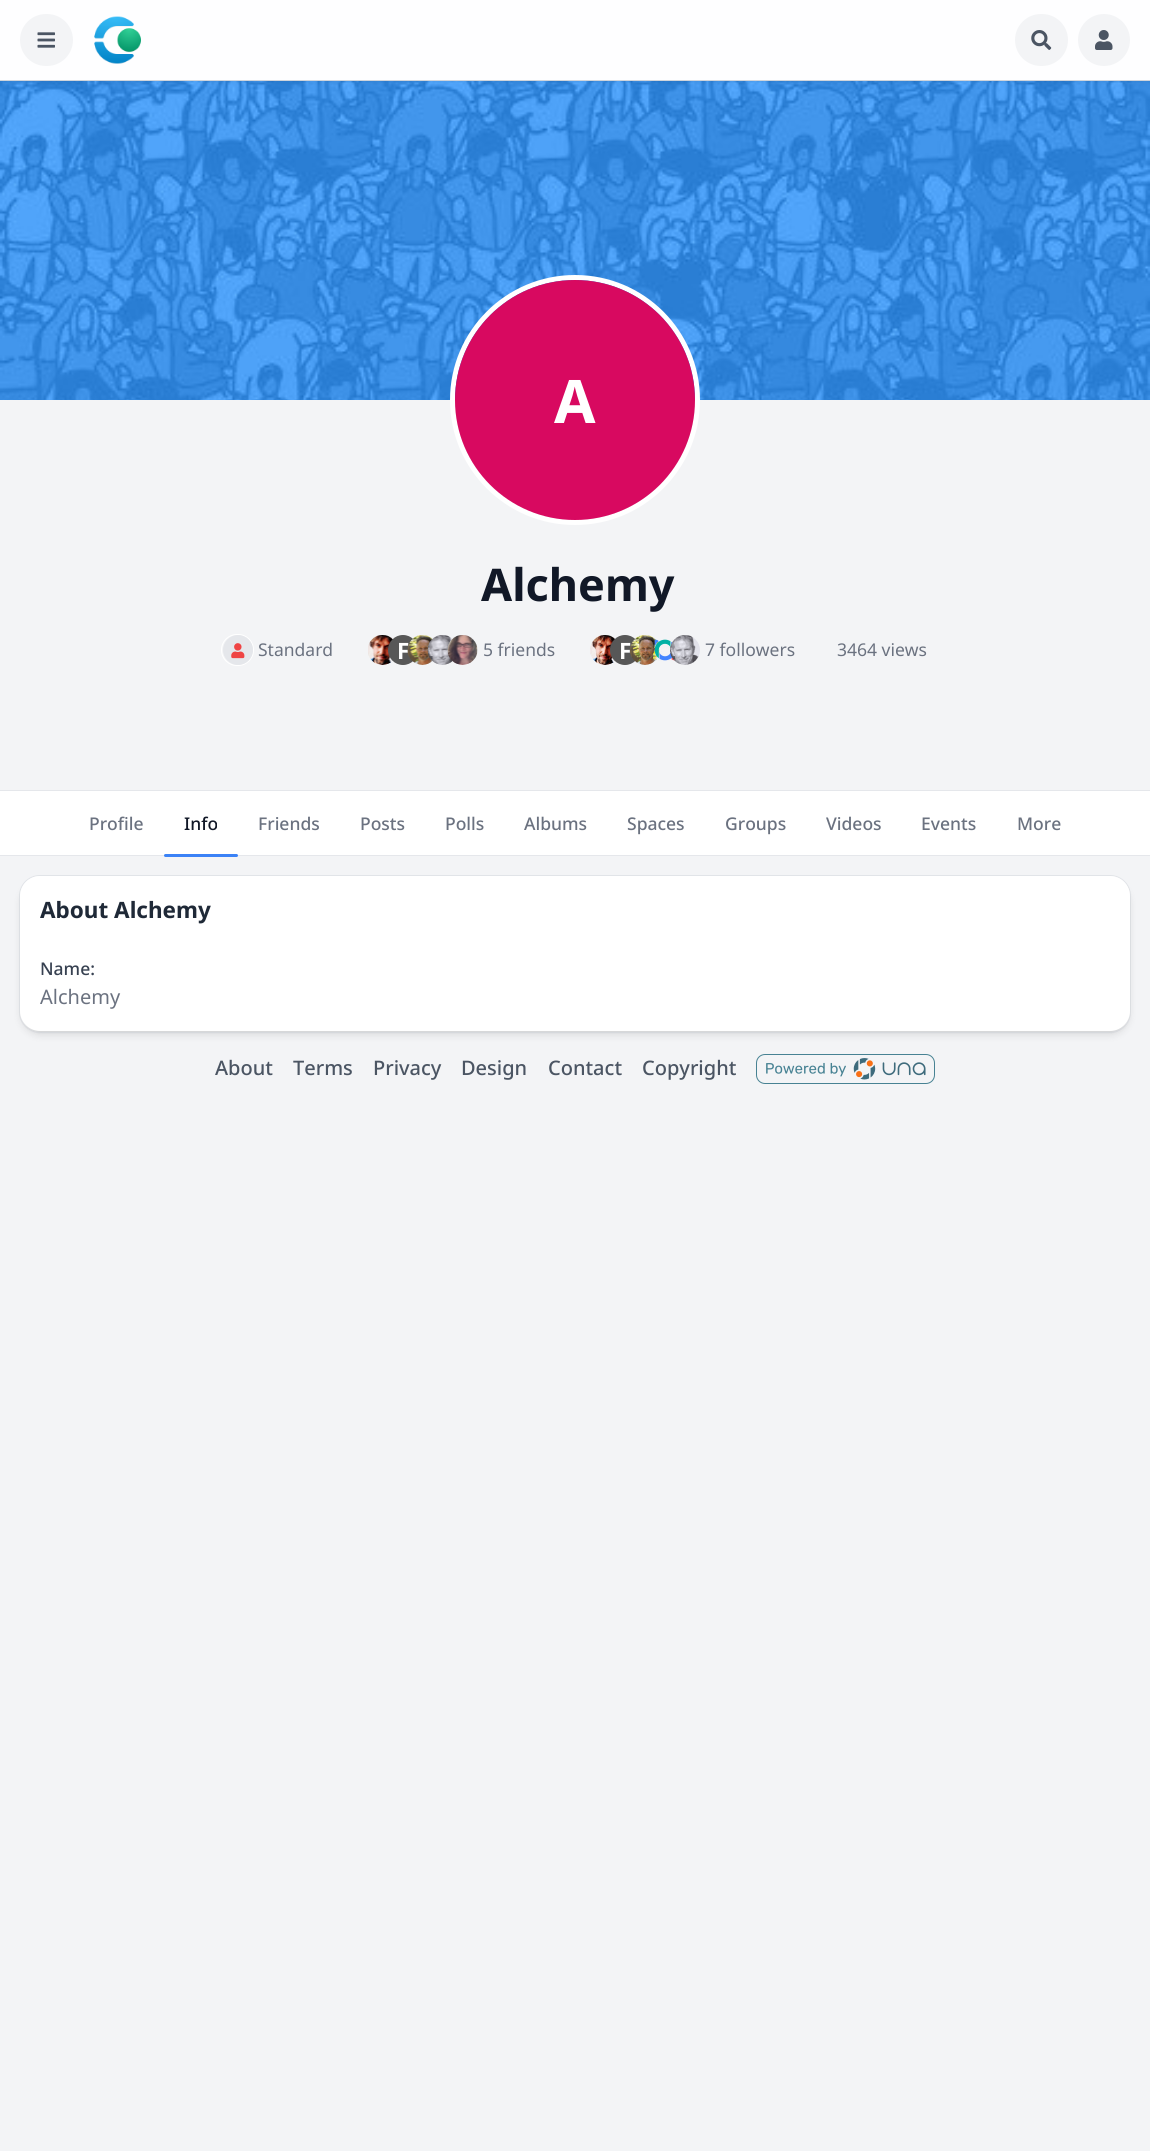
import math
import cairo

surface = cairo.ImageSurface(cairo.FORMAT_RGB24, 1150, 2151)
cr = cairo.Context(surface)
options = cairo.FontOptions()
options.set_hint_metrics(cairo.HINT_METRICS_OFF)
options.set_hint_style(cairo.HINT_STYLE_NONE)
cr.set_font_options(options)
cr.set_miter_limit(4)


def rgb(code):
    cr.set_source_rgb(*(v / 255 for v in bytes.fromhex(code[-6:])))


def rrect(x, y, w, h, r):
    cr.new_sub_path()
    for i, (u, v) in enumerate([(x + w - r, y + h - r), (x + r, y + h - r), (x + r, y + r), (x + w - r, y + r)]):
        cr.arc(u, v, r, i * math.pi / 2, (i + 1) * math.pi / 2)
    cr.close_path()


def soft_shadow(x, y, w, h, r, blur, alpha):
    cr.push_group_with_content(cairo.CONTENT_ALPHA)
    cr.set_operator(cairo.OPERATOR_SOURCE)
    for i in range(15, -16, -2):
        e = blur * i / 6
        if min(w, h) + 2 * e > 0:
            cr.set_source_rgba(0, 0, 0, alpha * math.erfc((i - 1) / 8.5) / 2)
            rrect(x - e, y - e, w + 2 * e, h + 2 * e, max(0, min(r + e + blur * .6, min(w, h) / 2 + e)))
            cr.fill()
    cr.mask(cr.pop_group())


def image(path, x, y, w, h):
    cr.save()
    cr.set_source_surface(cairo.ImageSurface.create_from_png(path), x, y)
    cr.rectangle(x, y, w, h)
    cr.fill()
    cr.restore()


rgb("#f3f4f6")
cr.paint()
image("img/5.png", 0, 81, 1150, 319)
rgb("#000000")
soft_shadow(0, 1, 1150, 80, 0, 2, 0.1)
cr.rectangle(-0.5, -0.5, 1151, 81)
rgb("#d1d5db")
cr.set_line_width(1)
cr.stroke()
rgb("#fefeff")
cr.rectangle(0, 0, 1150, 80)
cr.fill()
rgb("#f3f4f6")
rrect(20, 14, 53, 52, 26)
cr.fill()
image("img/1.png", 37, 32, 18, 16)
image("img/2.png", 94, 16, 47, 48)
rrect(1015, 14, 53, 52, 26)
cr.fill()
image("img/3.png", 1031, 30, 21, 20)
cr.arc(1104, 40, 26, 0, 2 * math.pi)
cr.fill()
image("img/4.png", 1095, 30, 18, 20)
cr.arc(575, 400, 122.5, 0, 2 * math.pi)
rgb("#ffffff")
cr.set_line_width(5)
cr.stroke()
rgb("#d80960")
cr.arc(575, 400, 120, 0, 2 * math.pi)
cr.fill()
rrect(221.5, 634.5, 32, 31, 15.5)
rgb("#ffffff")
cr.set_line_width(1)
cr.stroke()
rgb("#e5e7eb")
cr.arc(238, 650, 15, 0, 2 * math.pi)
cr.fill()
image("img/6.png", 231, 643, 14, 16)
image("img/7.png", 368, 635, 25, 30)
rgb("#575757")
cr.arc(403, 650, 15, 0, 2 * math.pi)
cr.fill()
image("img/11.png", 590, 635, 25, 30)
cr.arc(625, 650, 15, 0, 2 * math.pi)
cr.fill()
image("img/12.png", 630, 635, 30, 30)
image("img/13.png", 654, 639, 21, 22)
image("img/14.png", 670, 635, 30, 30)
for x, y, w, h, color in [
    (0, 790, 1150, 1, "#e5e7eb"),
    (0, 791, 1150, 64, "#ffffff"),
    (0, 855, 1150, 1, "#e5e7eb"),
]:
    rgb(color)
    cr.rectangle(x, y, w, h)
    cr.fill()
rgb("#3b82f6")
rrect(164, 854, 74, 3, 1.5)
cr.fill()
rgb("#000000")
soft_shadow(23, 881, 1105, 150, 18, 2.5, 0.1)
soft_shadow(21, 883, 1108, 152, 19, 4, 0.1)
rrect(19.5, 875.5, 1111, 157, 20.5)
cr.set_source_rgba(0.82, 0.835, 0.859, 0.5)
cr.stroke()
rgb("#ffffff")
rrect(20, 876, 1110, 155, 20)
cr.fill()
image("img/15.png", 756, 1054, 179, 30)
cr.select_font_face("Noto Sans", cairo.FONT_SLANT_NORMAL, cairo.FONT_WEIGHT_BOLD)
cr.set_font_size(60)
cr.move_to(554, 423)
cr.show_text("A")
cr.set_font_size(45)
rgb("#111827")
cr.move_to(481, 601)
cr.show_text("Alchemy")
cr.select_font_face("Noto Sans")
cr.set_font_size(17.5)
rgb("#6b7280")
cr.move_to(258, 656)
cr.show_text("Standard")
cr.select_font_face("Noto Sans", cairo.FONT_SLANT_NORMAL, cairo.FONT_WEIGHT_BOLD)
cr.set_font_size(22.5)
rgb("#ffffff")
cr.move_to(397, 659)
cr.show_text("F")
image("img/8.png", 407, 635, 26, 30)
image("img/9.png", 427, 635, 26, 30)
image("img/10.png", 447, 635, 31, 30)
cr.select_font_face("Noto Sans")
cr.set_font_size(17.5)
rgb("#6b7280")
cr.move_to(483, 656)
cr.show_text("5 friends")
cr.select_font_face("Noto Sans", cairo.FONT_SLANT_NORMAL, cairo.FONT_WEIGHT_BOLD)
cr.set_font_size(22.5)
rgb("#ffffff")
cr.move_to(619, 659)
cr.show_text("F")
cr.select_font_face("Noto Sans")
cr.set_font_size(17.5)
rgb("#6b7280")
cr.move_to(705, 656)
cr.show_text("7 followers")
cr.move_to(837, 656)
cr.show_text("3464 views")
cr.select_font_face("Noto Sans Medium")
cr.move_to(89, 830)
cr.show_text("Profile")
rgb("#111827")
cr.move_to(184, 830)
cr.show_text("Info")
rgb("#6b7280")
for x, y, s in [
    (258, 830, "Friends"),
    (360, 830, "Posts"),
    (445, 830, "Polls"),
    (524, 830, "Albums"),
    (627, 830, "Spaces"),
    (725, 830, "Groups"),
    (826, 830, "Videos"),
    (921, 830, "Events"),
    (1017, 830, "More"),
]:
    cr.move_to(x, y)
    cr.show_text(s)
cr.select_font_face("Noto Sans", cairo.FONT_SLANT_NORMAL, cairo.FONT_WEIGHT_BOLD)
cr.set_font_size(22.5)
rgb("#1f2937")
cr.move_to(40, 918)
cr.show_text("About Alchemy")
cr.select_font_face("Noto Sans Medium")
cr.set_font_size(17.5)
rgb("#374151")
cr.move_to(40, 975)
cr.show_text("Name:")
cr.select_font_face("Noto Sans")
cr.set_font_size(20)
rgb("#6b7280")
cr.move_to(40, 1004)
cr.show_text("Alchemy")
cr.select_font_face("Noto Sans Medium")
rgb("#4b5563")
for x, y, s in [
    (215, 1075, "About"),
    (293, 1075, "Terms"),
    (373, 1075, "Privacy"),
    (461, 1075, "Design"),
    (548, 1075, "Contact"),
    (642, 1075, "Copyright"),
]:
    cr.move_to(x, y)
    cr.show_text(s)
surface.write_to_png("page.png")
